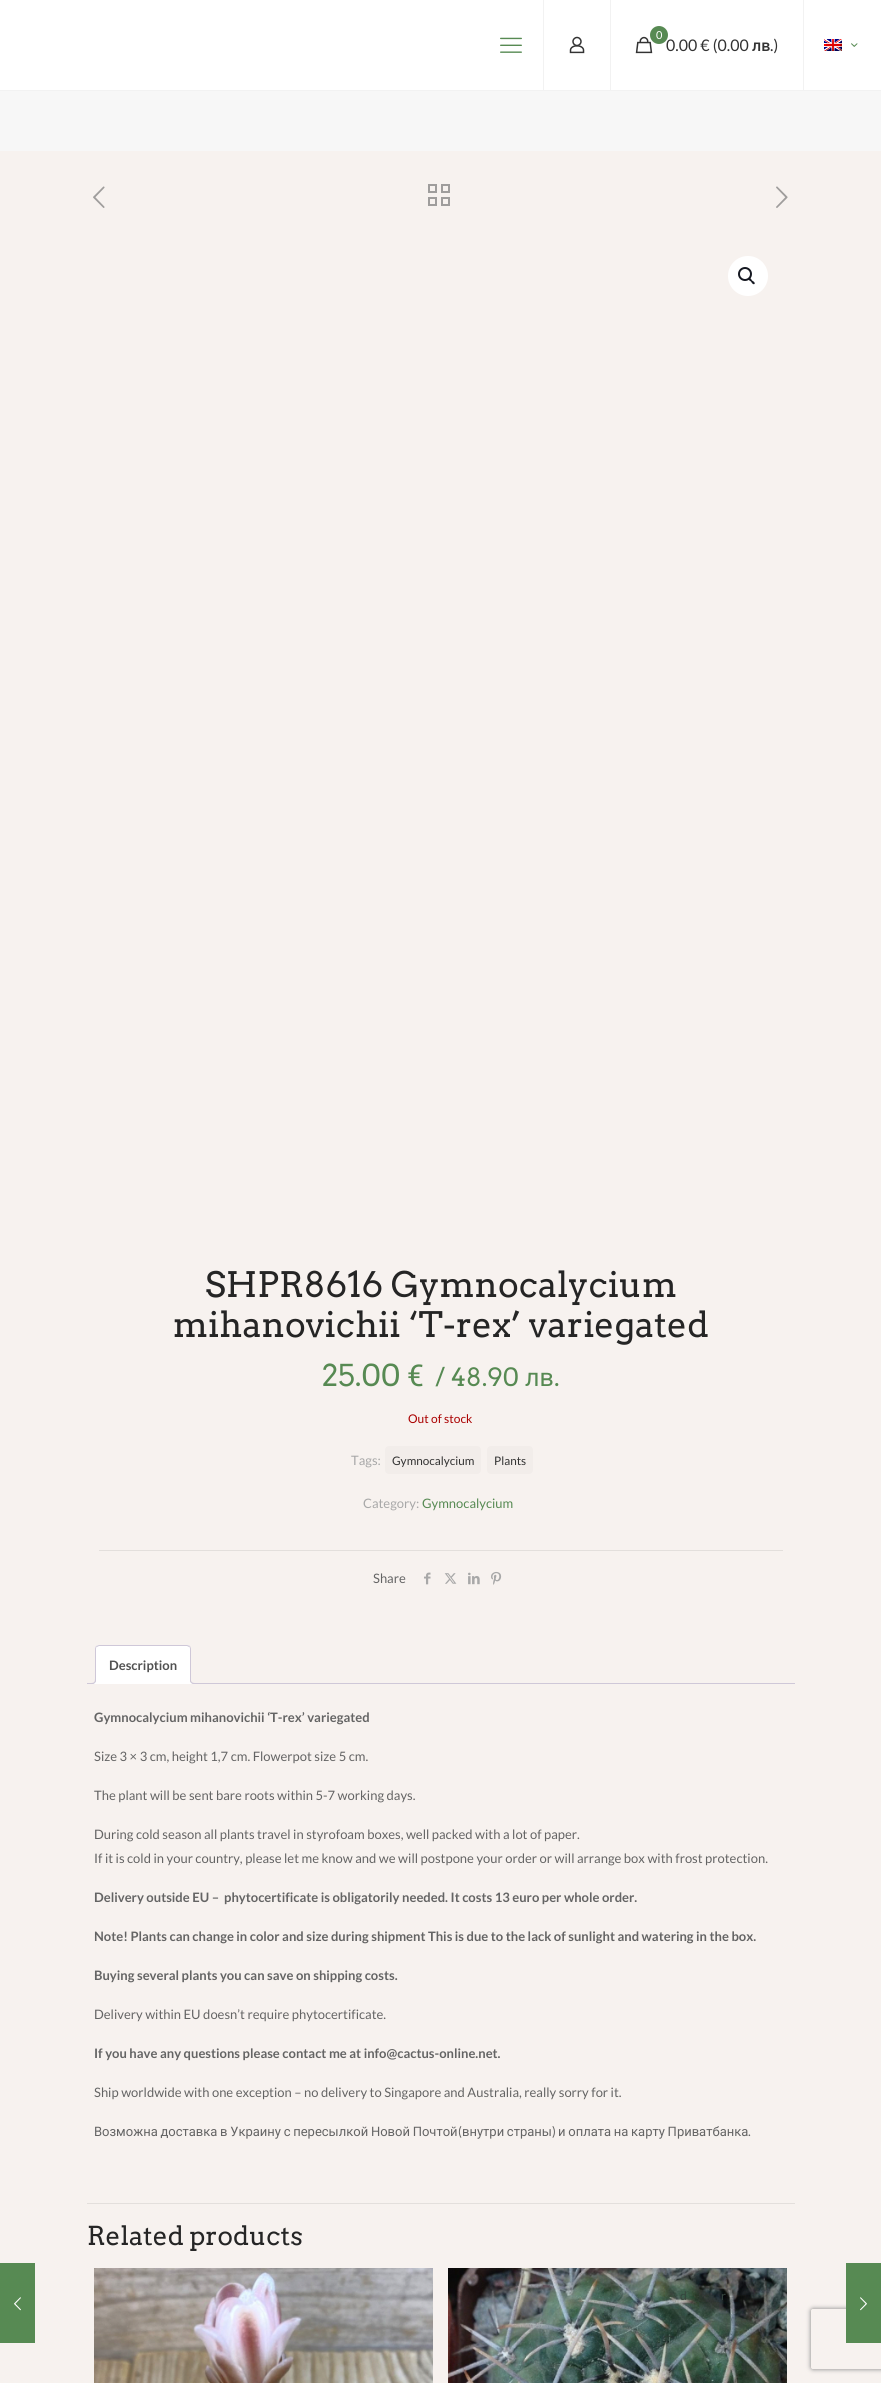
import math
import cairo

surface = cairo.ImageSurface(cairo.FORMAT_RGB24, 881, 2383)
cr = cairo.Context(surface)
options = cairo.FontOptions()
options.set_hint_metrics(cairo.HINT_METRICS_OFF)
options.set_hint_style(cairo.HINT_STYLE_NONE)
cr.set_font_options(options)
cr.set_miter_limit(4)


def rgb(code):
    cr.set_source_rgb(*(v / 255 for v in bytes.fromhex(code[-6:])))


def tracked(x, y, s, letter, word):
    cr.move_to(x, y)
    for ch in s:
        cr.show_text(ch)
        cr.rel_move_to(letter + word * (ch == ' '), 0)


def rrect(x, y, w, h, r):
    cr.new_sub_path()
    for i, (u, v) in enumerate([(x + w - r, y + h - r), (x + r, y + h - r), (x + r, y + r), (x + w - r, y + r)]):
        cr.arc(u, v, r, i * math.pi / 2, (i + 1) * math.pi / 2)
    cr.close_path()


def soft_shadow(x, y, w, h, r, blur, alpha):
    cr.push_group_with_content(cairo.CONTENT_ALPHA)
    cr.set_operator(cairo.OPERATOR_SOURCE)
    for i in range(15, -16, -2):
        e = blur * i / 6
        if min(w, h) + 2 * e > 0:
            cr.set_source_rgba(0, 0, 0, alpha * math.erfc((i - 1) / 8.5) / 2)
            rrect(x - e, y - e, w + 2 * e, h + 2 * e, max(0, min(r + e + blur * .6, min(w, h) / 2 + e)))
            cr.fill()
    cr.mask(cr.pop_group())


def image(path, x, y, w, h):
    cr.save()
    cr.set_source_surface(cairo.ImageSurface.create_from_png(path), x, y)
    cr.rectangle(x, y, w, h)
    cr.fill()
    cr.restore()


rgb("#f7f2ef")
cr.paint()
rgb("#578a53")
cr.rectangle(0, 2263, 35, 80)
cr.fill()
image("img/1.png", 14, 2297, 7, 14)
rgb("#ffffff")
cr.rectangle(0, 0, 881, 90)
cr.fill()
rgb("#f2f2f2")
cr.rectangle(0, 90, 881, 1)
cr.fill()
image("img/2.png", 500, 37, 22, 16)
cr.rectangle(543, 0, 1, 90)
cr.fill()
image("img/3.png", 569, 36, 16, 18)
cr.rectangle(610, 0, 1, 90)
cr.fill()
image("img/4.png", 635, 36, 18, 18)
cr.rectangle(803, 0, 1, 90)
cr.fill()
image("img/5.png", 824, 39, 18, 12)
image("img/6.png", 851, 43, 7, 4)
rgb("#f7f7f7")
cr.rectangle(0, 91, 881, 60)
cr.fill()
image("img/7.png", 93, 186, 12, 22)
image("img/8.png", 428, 184, 22, 22)
image("img/9.png", 776, 186, 12, 22)
rgb("#ffffff")
cr.arc(748, 276, 20, 0, 2 * math.pi)
cr.fill()
cr.arc(745, 274, 6, 0, 2 * math.pi)
rgb("#161922")
cr.stroke()
cr.new_path()
cr.move_to(748.5, 278)
cr.curve_to(750, 277, 751.5, 279.5, 752, 280.5)
cr.curve_to(753, 281, 755.5, 282.5, 754.5, 284)
cr.curve_to(753, 285, 751.5, 282.5, 751, 281.5)
cr.curve_to(750, 281, 747.5, 279.5, 748.5, 278)
cr.close_path()
cr.fill()
rgb("#f2edea")
rrect(385, 1446, 96, 28, 4)
cr.fill()
rrect(487, 1446, 46, 28, 4)
cr.fill()
rgb("#e3dfdc")
cr.rectangle(99, 1550, 684, 1)
cr.fill()
image("img/10.png", 424, 1572, 7, 13)
image("img/11.png", 444, 1573, 13, 11)
image("img/12.png", 468, 1572, 12, 13)
image("img/13.png", 491, 1571, 11, 14)
rgb("#cfc8d8")
cr.rectangle(87, 1683, 708, 1)
cr.fill()
rgb("#ffffff")
cr.new_path()
cr.move_to(99, 1645)
cr.line_to(187, 1645)
cr.curve_to(189, 1645, 191, 1647, 191, 1649)
cr.line_to(191, 1684)
cr.line_to(95, 1684)
cr.line_to(95, 1649)
cr.curve_to(95, 1647, 97, 1645, 99, 1645)
cr.close_path()
cr.fill()
rgb("#cfc8d8")
cr.new_path()
cr.move_to(99, 1645)
cr.line_to(96, 1646)
cr.line_to(97, 1647)
cr.line_to(99, 1646)
cr.line_to(187, 1646)
cr.line_to(189, 1647)
cr.line_to(190, 1646)
cr.line_to(187, 1645)
cr.close_path()
cr.fill()
cr.new_path()
cr.move_to(191, 1684)
cr.line_to(191, 1649)
cr.curve_to(191, 1648, 190.5, 1647, 190, 1646)
cr.line_to(189, 1647)
cr.curve_to(190, 1647, 190, 1648, 190, 1649)
cr.line_to(190, 1683)
cr.close_path()
cr.fill()
rgb("#ffffff")
cr.new_path()
cr.move_to(191, 1684)
cr.line_to(190, 1683)
cr.line_to(96, 1683)
cr.line_to(95, 1684)
cr.close_path()
cr.fill()
rgb("#cfc8d8")
cr.new_path()
cr.move_to(95, 1684)
cr.line_to(96, 1683)
cr.line_to(96, 1649)
cr.curve_to(96, 1648, 96, 1647, 97, 1647)
cr.line_to(96, 1646)
cr.curve_to(95.5, 1647, 95, 1648, 95, 1649)
cr.close_path()
cr.fill()
cr.save()
cr.rectangle(87, 1645, 708, 39)
cr.clip()
rgb("#ffffff")
cr.new_path()
cr.move_to(93, 1684)
cr.line_to(93, 1686)
cr.curve_to(96.5, 1686, 98, 1684.5, 98, 1681)
cr.line_to(96, 1681)
cr.curve_to(95.5, 1682.5, 94.5, 1683.5, 93, 1684)
cr.close_path()
cr.fill()
cr.restore()
cr.set_fill_rule(cairo.FILL_RULE_EVEN_ODD)
cr.new_path()
cr.move_to(91, 1679)
cr.line_to(96, 1679)
cr.curve_to(96, 1682.5, 94.5, 1684, 91, 1684)
cr.close_path()
cr.move_to(91, 1679)
cr.line_to(95, 1679)
cr.curve_to(95, 1682, 94, 1683, 91, 1683)
cr.close_path()
cr.fill()
cr.save()
cr.set_fill_rule(cairo.FILL_RULE_WINDING)
cr.rectangle(87, 1645, 708, 39)
cr.clip()
rgb("#ffffff")
cr.new_path()
cr.move_to(188, 1681)
cr.curve_to(188, 1684.5, 189.5, 1686, 193, 1686)
cr.line_to(193, 1684)
cr.curve_to(191.5, 1683.5, 190.5, 1682.5, 190, 1681)
cr.close_path()
cr.fill()
cr.restore()
cr.new_path()
cr.move_to(190, 1679)
cr.line_to(195, 1679)
cr.line_to(195, 1684)
cr.curve_to(192.5, 1684, 190, 1683, 190, 1680)
cr.close_path()
cr.move_to(191, 1679)
cr.line_to(195, 1679)
cr.line_to(195, 1683)
cr.curve_to(193, 1683, 191, 1682.5, 191, 1680)
cr.close_path()
cr.fill()
rgb("#e3dfdc")
cr.rectangle(87, 2203, 708, 1)
cr.fill()
image("img/14.png", 94, 2268, 339, 115)
image("img/15.png", 448, 2268, 339, 115)
cr.save()
cr.new_path()
cr.move_to(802, 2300)
cr.line_to(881, 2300)
cr.line_to(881, 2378)
cr.line_to(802, 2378)
cr.close_path()
cr.move_to(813, 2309)
cr.line_to(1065, 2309)
cr.curve_to(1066, 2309, 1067, 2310, 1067, 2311)
cr.line_to(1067, 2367)
cr.curve_to(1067, 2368, 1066, 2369, 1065, 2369)
cr.line_to(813, 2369)
cr.curve_to(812, 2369, 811, 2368, 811, 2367)
cr.line_to(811, 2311)
cr.curve_to(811, 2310, 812, 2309, 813, 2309)
cr.close_path()
cr.clip()
rgb("#808080")
soft_shadow(811, 2309, 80, 60, 2, 2.5, 1)
cr.restore()
rgb("#578a53")
cr.rectangle(846, 2263, 35, 80)
cr.fill()
image("img/16.png", 860, 2297, 7, 14)
cr.select_font_face("Lato")
cr.set_font_size(16)
rgb("#333333")
cr.move_to(666, 51)
cr.show_text("0.00 € (0.00")
rgb("#578a53")
cr.new_path()
cr.arc(659, 35, 9, 0, 2 * math.pi)
cr.fill()
cr.set_font_size(11)
rgb("#ffffff")
cr.move_to(656, 39)
cr.show_text("0")
cr.select_font_face("Roboto Medium")
cr.set_font_size(16)
rgb("#333333")
cr.move_to(752, 51)
cr.show_text("лв")
cr.select_font_face("Lato")
cr.move_to(770, 51)
cr.show_text(".)")
cr.select_font_face("Arvo")
cr.set_font_size(35)
rgb("#252525")
cr.move_to(205, 1297)
cr.show_text("SHPR8616 Gymnocalycium")
cr.move_to(173, 1337)
cr.show_text("mihanovichii ‘T-rex’ variegated")
cr.set_font_size(30)
rgb("#578a53")
cr.move_to(322, 1386)
cr.show_text("25.00")
cr.select_font_face("Roboto")
cr.move_to(407, 1386)
cr.show_text("€")
cr.select_font_face("Arvo")
cr.set_font_size(25)
cr.move_to(435, 1386)
cr.show_text("/ 48.90")
cr.select_font_face("Roboto")
cr.move_to(525, 1386)
cr.show_text("лв")
cr.select_font_face("Arvo")
cr.move_to(554, 1386)
cr.show_text(".")
cr.select_font_face("Lato")
cr.set_font_size(12)
rgb("#aa0000")
cr.move_to(408, 1423)
cr.show_text("Out of stock")
cr.set_font_size(13)
rgb("#a8a8a8")
cr.move_to(351, 1465)
cr.show_text("Tags:")
cr.set_font_size(11.75)
rgb("#333333")
cr.move_to(392, 1465)
cr.show_text("Gymnocalycium")
cr.move_to(494, 1465)
cr.show_text("Plants")
cr.set_font_size(13)
rgb("#a8a8a8")
cr.move_to(363, 1508)
cr.show_text("Category:")
rgb("#578a53")
cr.move_to(422, 1508)
cr.show_text("Gymnocalycium")
rgb("#646464")
cr.move_to(373, 1583)
cr.show_text("Share")
cr.select_font_face("Lato", cairo.FONT_SLANT_NORMAL, cairo.FONT_WEIGHT_BOLD)
rgb("#515151")
cr.move_to(109, 1670)
cr.show_text("Description")
rgb("#646464")
cr.move_to(94, 1722)
cr.show_text("Gymnocalycium mihanovichii ‘T-rex’ variegated")
cr.select_font_face("Lato")
for x, y, s in [
    (94, 1761, "Size 3 × 3 cm, height 1,7 cm. Flowerpot size 5 cm."),
    (94, 1800, "The plant will be sent bare roots within 5-7 working days."),
    (94, 1839, "During cold season all plants travel in styrofoam boxes, well packed with a lot of paper."),
    (94, 1863, "If it is cold in your country, please let me know and we will postpone your order or will arrange box with frost protection."),
]:
    cr.move_to(x, y)
    cr.show_text(s)
cr.select_font_face("Lato", cairo.FONT_SLANT_NORMAL, cairo.FONT_WEIGHT_BOLD)
for x, y, s in [
    (94, 1902, "Delivery outside EU –  phytocertificate is obligatorily needed. It costs 13 euro per whole order."),
    (94, 1941, "Note! Plants can change in color and size during shipment This is due to the lack of sunlight and watering in the box."),
    (94, 1980, "Buying several plants you can save on shipping costs."),
]:
    cr.move_to(x, y)
    cr.show_text(s)
cr.select_font_face("Lato")
cr.move_to(94, 2019)
cr.show_text("Delivery within EU doesn’t require phytocertificate.")
cr.select_font_face("Lato", cairo.FONT_SLANT_NORMAL, cairo.FONT_WEIGHT_BOLD)
cr.move_to(94, 2058)
cr.show_text("If you have any questions please contact me at info@cactus-online.net.")
cr.select_font_face("Lato")
cr.move_to(94, 2097)
cr.show_text("Ship worldwide with one exception – no delivery to Singapore and Australia, really sorry for it.")
cr.select_font_face("Roboto")
tracked(94, 2136, "Возможна доставка в Украину с пересылкой Новой Почтой", 0, -0.5)
cr.select_font_face("Lato")
cr.move_to(458, 2136)
cr.show_text("(")
cr.select_font_face("Roboto")
tracked(462, 2136, "внутри страны", 0, -0.5)
cr.select_font_face("Lato")
cr.move_to(552, 2136)
cr.show_text(")")
cr.select_font_face("Roboto")
tracked(558, 2136, "и оплата на карту Приватбанка", 0, -0.5)
cr.select_font_face("Lato")
cr.move_to(748, 2136)
cr.show_text(".")
cr.select_font_face("Arvo")
cr.set_font_size(26)
rgb("#252525")
cr.move_to(87, 2245)
cr.show_text("Related products")
cr.select_font_face("Lato")
cr.set_font_size(12)
rgb("#34443c")
cr.move_to(680, 2300)
cr.show_text("d")
cr.move_to(721, 2300)
cr.show_text("r")
rgb("#546a62")
cr.move_to(668, 2343)
cr.show_text("i")
surface.write_to_png("page.png")
